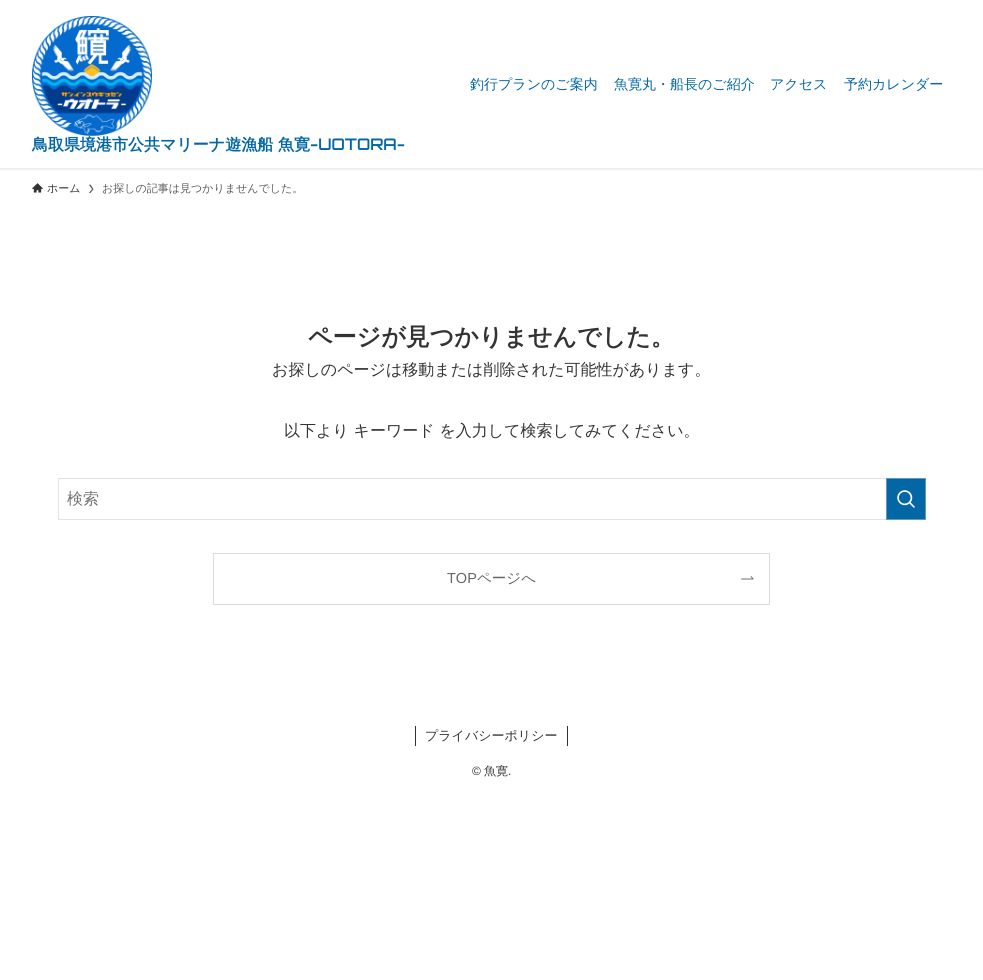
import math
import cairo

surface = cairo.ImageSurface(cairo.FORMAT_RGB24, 983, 980)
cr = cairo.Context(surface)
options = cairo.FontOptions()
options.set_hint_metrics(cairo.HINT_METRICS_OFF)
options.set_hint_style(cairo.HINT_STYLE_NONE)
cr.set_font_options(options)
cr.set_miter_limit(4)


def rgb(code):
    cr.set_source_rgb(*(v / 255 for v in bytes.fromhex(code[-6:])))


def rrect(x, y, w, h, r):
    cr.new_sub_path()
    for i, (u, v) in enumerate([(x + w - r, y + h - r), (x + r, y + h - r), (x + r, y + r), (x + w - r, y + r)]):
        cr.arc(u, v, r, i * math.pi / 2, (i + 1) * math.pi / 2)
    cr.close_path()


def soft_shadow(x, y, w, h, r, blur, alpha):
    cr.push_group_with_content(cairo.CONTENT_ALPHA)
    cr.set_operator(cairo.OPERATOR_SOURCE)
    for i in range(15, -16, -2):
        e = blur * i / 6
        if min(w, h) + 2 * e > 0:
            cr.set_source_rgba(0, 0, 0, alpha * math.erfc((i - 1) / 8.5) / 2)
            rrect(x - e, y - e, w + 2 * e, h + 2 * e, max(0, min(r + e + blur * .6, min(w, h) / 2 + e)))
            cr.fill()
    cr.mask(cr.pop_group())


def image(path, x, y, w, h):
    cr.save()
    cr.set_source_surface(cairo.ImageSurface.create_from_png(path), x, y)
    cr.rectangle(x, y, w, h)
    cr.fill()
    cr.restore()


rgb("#ffffff")
cr.paint()
cr.save()
cr.rectangle(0, 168, 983, 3)
cr.clip()
rgb("#000000")
soft_shadow(0, 1, 983, 168, 0, 2, 0.12)
cr.restore()
image("img/1.png", 32, 16, 120, 120)
image("img/2.png", 32, 183, 11, 10)
rgb("#5c5c5c")
cr.new_path()
cr.move_to(90.5, 184.5)
cr.line_to(89, 185)
cr.line_to(92, 189)
cr.line_to(89, 193)
cr.line_to(90.5, 193)
cr.line_to(93.5, 189)
cr.close_path()
cr.fill()
cr.rectangle(58.5, 478.5, 867, 41)
rgb("#e3e3e3")
cr.set_line_width(1)
cr.stroke()
rgb("#0367a6")
cr.rectangle(886.5, 478.5, 39, 41)
cr.fill_preserve()
rgb("#6597b7")
cr.stroke()
image("img/3.png", 897, 490, 18, 18)
cr.rectangle(213.5, 553.5, 556, 51)
rgb("#dcdcdc")
cr.stroke()
image("img/4.png", 741, 576, 13, 4)
rgb("#333333")
cr.rectangle(567, 726, 1, 20)
cr.fill()
cr.rectangle(415, 726, 1, 20)
cr.fill()
cr.select_font_face("WenQuanYi Zen Hei Medium")
cr.set_font_size(14)
rgb("#0367a6")
for x, y, s in [
    (470, 89, "釣行プランのご案内"),
    (614, 89, "魚寛丸・船長のご紹介"),
    (770, 89, "アクセス"),
    (844, 89, "予約カレンダー"),
]:
    cr.move_to(x, y)
    cr.show_text(s)
cr.select_font_face("WenQuanYi Zen Hei", cairo.FONT_SLANT_NORMAL, cairo.FONT_WEIGHT_BOLD)
cr.set_font_size(16)
cr.move_to(32, 150)
cr.show_text("鳥取県境港市公共マリーナ遊漁船 魚寛")
cr.select_font_face("Orbitron SemiBold")
cr.move_to(310, 150)
cr.show_text("-UOTORA-")
cr.select_font_face("WenQuanYi Zen Hei Medium")
cr.set_font_size(11)
rgb("#333333")
cr.move_to(47, 192)
cr.show_text("ホーム")
rgb("#5c5c5c")
cr.move_to(102, 192)
cr.show_text("お探しの記事は見つかりませんでした。")
cr.select_font_face("WenQuanYi Zen Hei", cairo.FONT_SLANT_NORMAL, cairo.FONT_WEIGHT_BOLD)
cr.set_font_size(24)
rgb("#333333")
cr.move_to(308, 345)
cr.show_text("ページが見つかりませんでした。")
cr.select_font_face("WenQuanYi Zen Hei Medium")
cr.set_font_size(16)
cr.move_to(272, 375)
cr.show_text("お探しのページは移動または削除された可能性があります。")
cr.move_to(284, 436)
cr.show_text("以下より キーワード を入力して検索してみてください。")
rgb("#757575")
cr.move_to(67, 504)
cr.show_text("検索")
cr.select_font_face("Liberation Sans")
cr.set_font_size(14.5)
rgb("#666666")
cr.move_to(447, 583)
cr.show_text("TOP")
cr.select_font_face("WenQuanYi Zen Hei Medium")
cr.move_to(477, 583)
cr.show_text("ページへ")
cr.set_font_size(13)
rgb("#333333")
cr.move_to(425, 740)
cr.show_text("プライバシーポリシー")
cr.select_font_face("Liberation Sans")
cr.set_font_size(12)
cr.move_to(472, 775)
cr.show_text("©")
cr.select_font_face("WenQuanYi Zen Hei Medium")
cr.move_to(484, 775)
cr.show_text("魚寛")
cr.select_font_face("Liberation Sans")
cr.move_to(508, 775)
cr.show_text(".")
surface.write_to_png("page.png")
